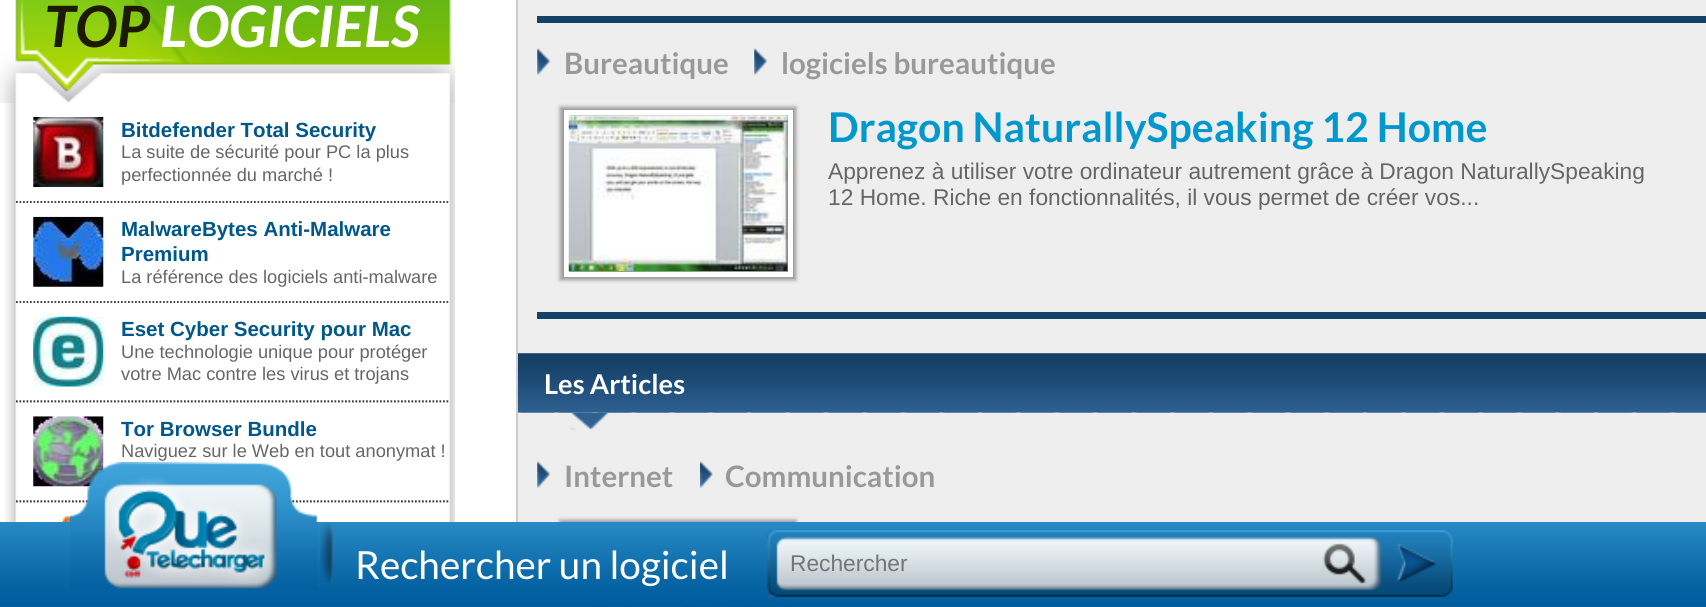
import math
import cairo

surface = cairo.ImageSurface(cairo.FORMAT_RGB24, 1706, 607)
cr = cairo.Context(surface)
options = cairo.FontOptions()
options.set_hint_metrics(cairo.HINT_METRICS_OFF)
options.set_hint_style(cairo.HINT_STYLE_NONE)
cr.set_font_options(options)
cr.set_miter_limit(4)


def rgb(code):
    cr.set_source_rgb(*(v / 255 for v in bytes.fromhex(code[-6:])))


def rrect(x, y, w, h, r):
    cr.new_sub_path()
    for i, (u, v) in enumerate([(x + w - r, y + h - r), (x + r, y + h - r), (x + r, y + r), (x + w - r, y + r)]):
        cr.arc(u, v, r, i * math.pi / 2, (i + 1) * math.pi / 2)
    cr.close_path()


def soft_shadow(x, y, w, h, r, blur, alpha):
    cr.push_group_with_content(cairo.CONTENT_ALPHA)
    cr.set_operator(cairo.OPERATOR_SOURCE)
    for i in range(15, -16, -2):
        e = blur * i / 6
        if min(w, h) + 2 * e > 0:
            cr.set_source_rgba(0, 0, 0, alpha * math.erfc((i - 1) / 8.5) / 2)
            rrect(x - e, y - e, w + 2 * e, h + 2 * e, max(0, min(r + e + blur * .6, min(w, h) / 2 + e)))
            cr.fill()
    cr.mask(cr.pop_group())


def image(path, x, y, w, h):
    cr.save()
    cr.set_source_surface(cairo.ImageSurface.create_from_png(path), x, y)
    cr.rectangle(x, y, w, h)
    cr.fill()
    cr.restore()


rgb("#ffffff")
cr.paint()
image("img/1.png", 0, 0, 455, 103)
image("img/2.png", 4, 103, 451, 504)
cr.new_path()
cr.move_to(16, 202)
cr.line_to(450, 202)
rgb("#333333")
cr.set_line_width(1.8)
cr.set_dash([1.75, 1.75])
cr.stroke()
image("img/3.png", 33, 117, 71, 70)
cr.new_path()
cr.move_to(16, 302)
cr.line_to(450, 302)
cr.stroke()
image("img/4.png", 33, 216, 71, 71)
cr.new_path()
cr.move_to(16, 401.5)
cr.line_to(450, 401.5)
cr.stroke()
cr.save()
cr.rectangle(16, 303, 434, 98)
cr.clip()
cr.new_path()
cr.move_to(16, 401.5)
cr.line_to(450, 401.5)
cr.stroke()
cr.restore()
image("img/5.png", 33, 316, 71, 71)
cr.new_path()
cr.move_to(16, 501.5)
cr.line_to(450, 501.5)
cr.stroke()
cr.save()
cr.rectangle(16, 403, 434, 98)
cr.clip()
cr.new_path()
cr.move_to(16, 501.5)
cr.line_to(450, 501.5)
cr.stroke()
cr.restore()
image("img/6.png", 33, 416, 71, 71)
image("img/7.png", 33, 516, 46, 6)
rgb("#eeeeee")
cr.rectangle(517, -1, 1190, 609)
cr.fill_preserve()
rgb("#cccccc")
cr.set_line_width(2)
cr.set_dash([])
cr.stroke()
rgb("#154168")
cr.rectangle(537, 16, 1169, 7)
cr.fill()
cr.rectangle(537, 312, 1169, 7)
cr.fill()
image("img/8.png", 537, 48, 13, 27)
image("img/8.png", 754, 48, 13, 27)
rgb("#999999")
soft_shadow(560, 107, 236, 173, 0, 2, 1)
cr.rectangle(566.5, 112.5, 224, 162)
rgb("#ffffff")
cr.set_line_width(5)
cr.stroke()
image("img/9.png", 568, 115, 220, 156)
image("img/10.png", 518, 353, 1188, 60)
image("img/11.png", 570, 412, 39, 18)
image("img/8.png", 537, 461, 13, 27)
image("img/12.png", 700, 461, 13, 27)
rgb("#999999")
soft_shadow(560, 520, 236, 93, 0, 2, 1)
cr.rectangle(566.5, 525.5, 224, 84)
rgb("#ffffff")
cr.stroke()
image("img/13.png", 568, 606, 220, 1)
image("img/14.png", 0, 522, 1706, 85)
cr.set_source_rgba(0, 0.357, 0.616, 0.87)
cr.rectangle(0, 606, 1706, 1)
cr.fill()
image("img/15.png", 70, 462, 247, 127)
image("img/16.png", 320, 523, 13, 60)
image("img/17.png", 766, 530, 620, 67)
image("img/18.png", 1386, 530, 67, 67)
cr.select_font_face("Lato", cairo.FONT_SLANT_ITALIC, cairo.FONT_WEIGHT_BOLD)
cr.set_font_size(57)
rgb("#1d1904")
cr.move_to(44, 47)
cr.show_text("TOP")
rgb("#ffffff")
cr.move_to(160, 47)
cr.show_text("LOGICIELS")
cr.select_font_face("Liberation Sans", cairo.FONT_SLANT_NORMAL, cairo.FONT_WEIGHT_BOLD)
cr.set_font_size(20.5)
rgb("#00588a")
cr.move_to(121, 137)
cr.show_text("Bitdefender Total Security")
cr.select_font_face("Liberation Sans")
cr.set_font_size(18.25)
rgb("#666666")
cr.move_to(121, 158)
cr.show_text("La suite de sécurité pour PC la plus")
cr.move_to(121, 181)
cr.show_text("perfectionnée du marché !")
cr.select_font_face("Liberation Sans", cairo.FONT_SLANT_NORMAL, cairo.FONT_WEIGHT_BOLD)
cr.set_font_size(20.5)
rgb("#00588a")
cr.move_to(121, 236)
cr.show_text("MalwareBytes Anti-Malware")
cr.move_to(121, 261)
cr.show_text("Premium")
cr.select_font_face("Liberation Sans")
cr.set_font_size(18.25)
rgb("#666666")
cr.move_to(121, 283)
cr.show_text("La référence des logiciels anti-malware")
cr.select_font_face("Liberation Sans", cairo.FONT_SLANT_NORMAL, cairo.FONT_WEIGHT_BOLD)
cr.set_font_size(20.5)
rgb("#00588a")
cr.move_to(121, 336)
cr.show_text("Eset Cyber Security pour Mac")
cr.select_font_face("Liberation Sans")
cr.set_font_size(18.25)
rgb("#666666")
cr.move_to(121, 358)
cr.show_text("Une technologie unique pour protéger")
cr.move_to(121, 380)
cr.show_text("votre Mac contre les virus et trojans")
cr.select_font_face("Liberation Sans", cairo.FONT_SLANT_NORMAL, cairo.FONT_WEIGHT_BOLD)
cr.set_font_size(20.5)
rgb("#00588a")
cr.move_to(121, 436)
cr.show_text("Tor Browser Bundle")
cr.select_font_face("Liberation Sans")
cr.set_font_size(18.25)
rgb("#666666")
cr.move_to(121, 457)
cr.show_text("Naviguez sur le Web en tout anonymat !")
cr.select_font_face("Lato", cairo.FONT_SLANT_NORMAL, cairo.FONT_WEIGHT_BOLD)
cr.set_font_size(29.5)
rgb("#999999")
cr.move_to(564, 74)
cr.show_text("Bureautique")
cr.move_to(781, 74)
cr.show_text("logiciels bureautique")
cr.set_font_size(41)
rgb("#0298cd")
cr.move_to(828, 142)
cr.show_text("Dragon NaturallySpeaking 12 Home")
cr.select_font_face("Liberation Sans")
cr.set_font_size(22.75)
rgb("#666666")
cr.move_to(828, 179)
cr.show_text("Apprenez à utiliser votre ordinateur autrement grâce à Dragon NaturallySpeaking")
cr.move_to(828, 205)
cr.show_text("12 Home. Riche en fonctionnalités, il vous permet de créer vos...")
cr.select_font_face("Lato", cairo.FONT_SLANT_NORMAL, cairo.FONT_WEIGHT_BOLD)
cr.set_font_size(27.25)
rgb("#ffffff")
cr.move_to(544, 394)
cr.show_text("Les Articles")
cr.set_font_size(29.5)
rgb("#999999")
cr.move_to(564, 487)
cr.show_text("Internet")
cr.move_to(725, 487)
cr.show_text("Communication")
cr.select_font_face("Lato")
cr.set_font_size(38.75)
rgb("#ffffff")
cr.move_to(355, 579)
cr.show_text("Rechercher un logiciel")
cr.select_font_face("Liberation Sans")
cr.set_font_size(22.75)
rgb("#757575")
cr.move_to(790, 571)
cr.show_text("Rechercher")
surface.write_to_png("page.png")
